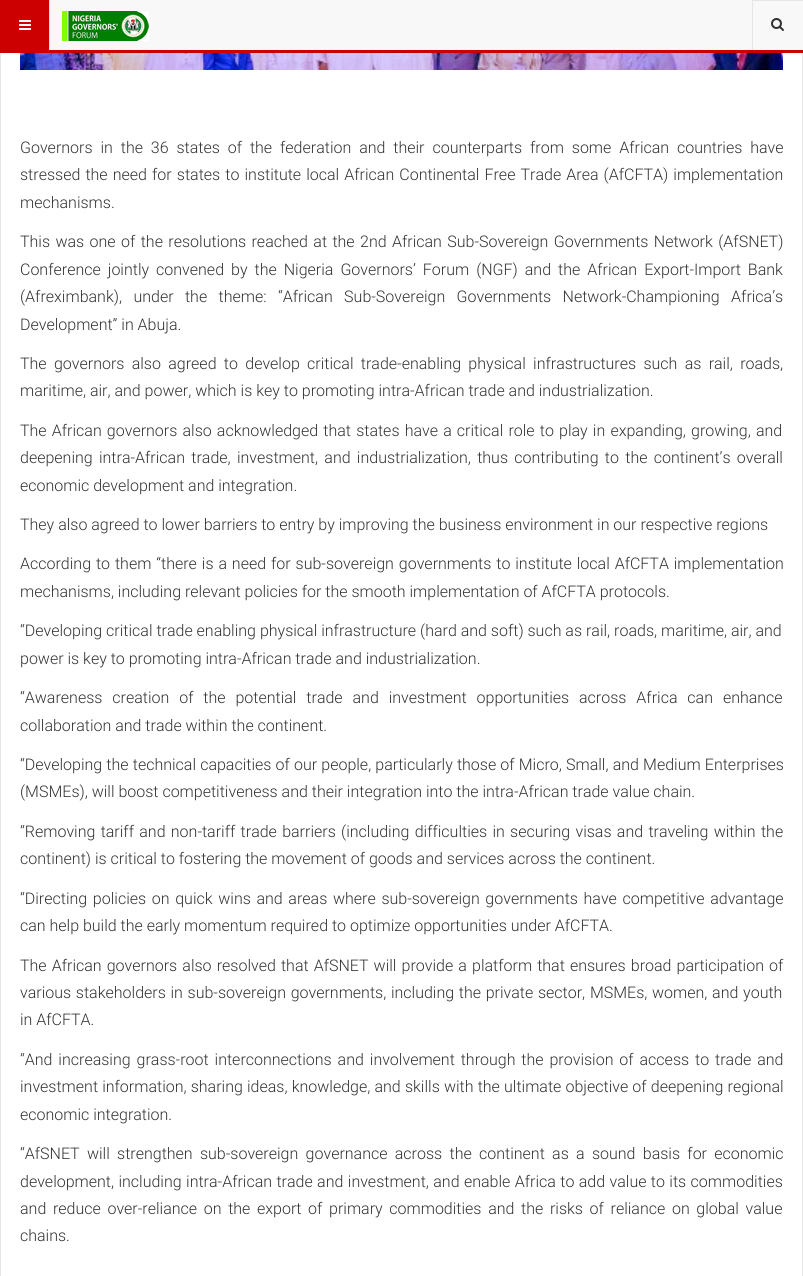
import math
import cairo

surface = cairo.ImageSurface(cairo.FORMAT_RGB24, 803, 1276)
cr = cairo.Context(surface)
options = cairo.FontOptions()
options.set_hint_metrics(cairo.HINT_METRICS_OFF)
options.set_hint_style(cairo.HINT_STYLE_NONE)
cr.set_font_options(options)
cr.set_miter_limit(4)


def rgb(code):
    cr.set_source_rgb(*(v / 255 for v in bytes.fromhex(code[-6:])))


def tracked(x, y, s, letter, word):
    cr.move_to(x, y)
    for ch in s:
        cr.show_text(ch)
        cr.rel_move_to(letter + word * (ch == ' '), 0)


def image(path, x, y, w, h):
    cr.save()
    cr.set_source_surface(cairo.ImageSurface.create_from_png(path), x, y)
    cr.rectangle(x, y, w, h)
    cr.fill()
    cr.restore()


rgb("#ffffff")
cr.paint()
cr.rectangle(0.5, -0.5, 802, 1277)
rgb("#e5e5e5")
cr.set_line_width(1)
cr.stroke()
for x, y, w, h, color in [
    (50, 0, 753, 50, "#f8f8f8"),
    (0, 50, 803, 3, "#cc0000"),
    (0, 0, 49, 50, "#cc0000"),
    (49, 0, 1, 50, "#e5e5e5"),
]:
    rgb(color)
    cr.rectangle(x, y, w, h)
    cr.fill()
image("img/1.png", 19, 20, 12, 10)
image("img/2.png", 62, 11, 87, 30)
cr.rectangle(753, 0, 50, 1)
cr.fill()
cr.rectangle(752, 0, 1, 50)
cr.fill()
image("img/3.png", 771, 18, 13, 13)
image("img/4.png", 20, 53, 763, 17)
cr.select_font_face("Roboto Light")
cr.set_font_size(16)
rgb("#333333")
tracked(20, 153, "Governors in the 36 states of the federation and their counterparts from some African countries have", 0, 4)
tracked(20, 180, "stressed the need for states to institute local African Continental Free Trade Area (AfCFTA) implementation", 0, 1.2)
cr.move_to(20, 208)
cr.show_text("mechanisms.")
tracked(20, 247, "This was one of the resolutions reached at the 2nd African Sub-Sovereign Governments Network (AfSNET)", 0, 1.5)
tracked(20, 275, "Conference jointly convened by the Nigeria Governors’ Forum (NGF) and the African Export-Import Bank", 0, 3.1)
tracked(20, 302, "(Afreximbank), under the theme: “African Sub-Sovereign Governments Network-Championing Africa’s", 0, 7.5)
cr.move_to(20, 330)
cr.show_text("Development” in Abuja.")
tracked(20, 369, "The governors also agreed to develop critical trade-enabling physical infrastructures such as rail, roads,", 0, 3.4)
cr.move_to(20, 396)
cr.show_text("maritime, air, and power, which is key to promoting intra-African trade and industrialization.")
tracked(20, 436, "The African governors also acknowledged that states have a critical role to play in expanding, growing, and", 0, 1.25)
tracked(20, 463, "deepening intra-African trade, investment, and industrialization, thus contributing to the continent’s overall", 0, 2.4)
cr.move_to(20, 491)
cr.show_text("economic development and integration.")
cr.move_to(20, 530)
cr.show_text("They also agreed to lower barriers to entry by improving the business environment in our respective regions")
tracked(20, 569, "According to them “there is a need for sub-sovereign governments to institute local AfCFTA implementation", 0, 1)
for x, y, s in [
    (20, 597, "mechanisms, including relevant policies for the smooth implementation of AfCFTA protocols."),
    (20, 636, "“Developing critical trade enabling physical infrastructure (hard and soft) such as rail, roads, maritime, air, and"),
    (20, 664, "power is key to promoting intra-African trade and industrialization."),
]:
    cr.move_to(x, y)
    cr.show_text(s)
tracked(20, 703, "“Awareness creation of the potential trade and investment opportunities across Africa can enhance", 0, 6)
cr.move_to(20, 731)
cr.show_text("collaboration and trade within the continent.")
tracked(20, 770, "“Developing the technical capacities of our people, particularly those of Micro, Small, and Medium Enterprises", 0, 0.25)
cr.move_to(20, 797)
cr.show_text("(MSMEs), will boost competitiveness and their integration into the intra-African trade value chain.")
tracked(20, 837, "“Removing tariff and non-tariff trade barriers (including difficulties in securing visas and traveling within the", 0, 1.4)
cr.move_to(20, 864)
cr.show_text("continent) is critical to fostering the movement of goods and services across the continent.")
tracked(20, 904, "“Directing policies on quick wins and areas where sub-sovereign governments have competitive advantage", 0, 1.75)
cr.move_to(20, 931)
cr.show_text("can help build the early momentum required to optimize opportunities under AfCFTA.")
tracked(20, 971, "The African governors also resolved that AfSNET will provide a platform that ensures broad participation of", 0, 1.2)
tracked(20, 998, "various stakeholders in sub-sovereign governments, including the private sector, MSMEs, women, and youth", 0, 0.8)
cr.move_to(20, 1025)
cr.show_text("in AfCFTA.")
tracked(20, 1065, "“And increasing grass-root interconnections and involvement through the provision of access to trade and", 0, 2)
tracked(20, 1092, "investment information, sharing ideas, knowledge, and skills with the ultimate objective of deepening regional", 0, 0.25)
cr.move_to(20, 1120)
cr.show_text("economic integration.")
tracked(20, 1159, "“AfSNET will strengthen sub-sovereign governance across the continent as a sound basis for economic", 0, 3.4)
tracked(20, 1187, "development, including intra-African trade and investment, and enable Africa to add value to its commodities", 0, 0.5)
tracked(20, 1214, "and reduce over-reliance on the export of primary commodities and the risks of reliance on global value", 0, 2.75)
cr.move_to(20, 1241)
cr.show_text("chains.")
surface.write_to_png("page.png")
